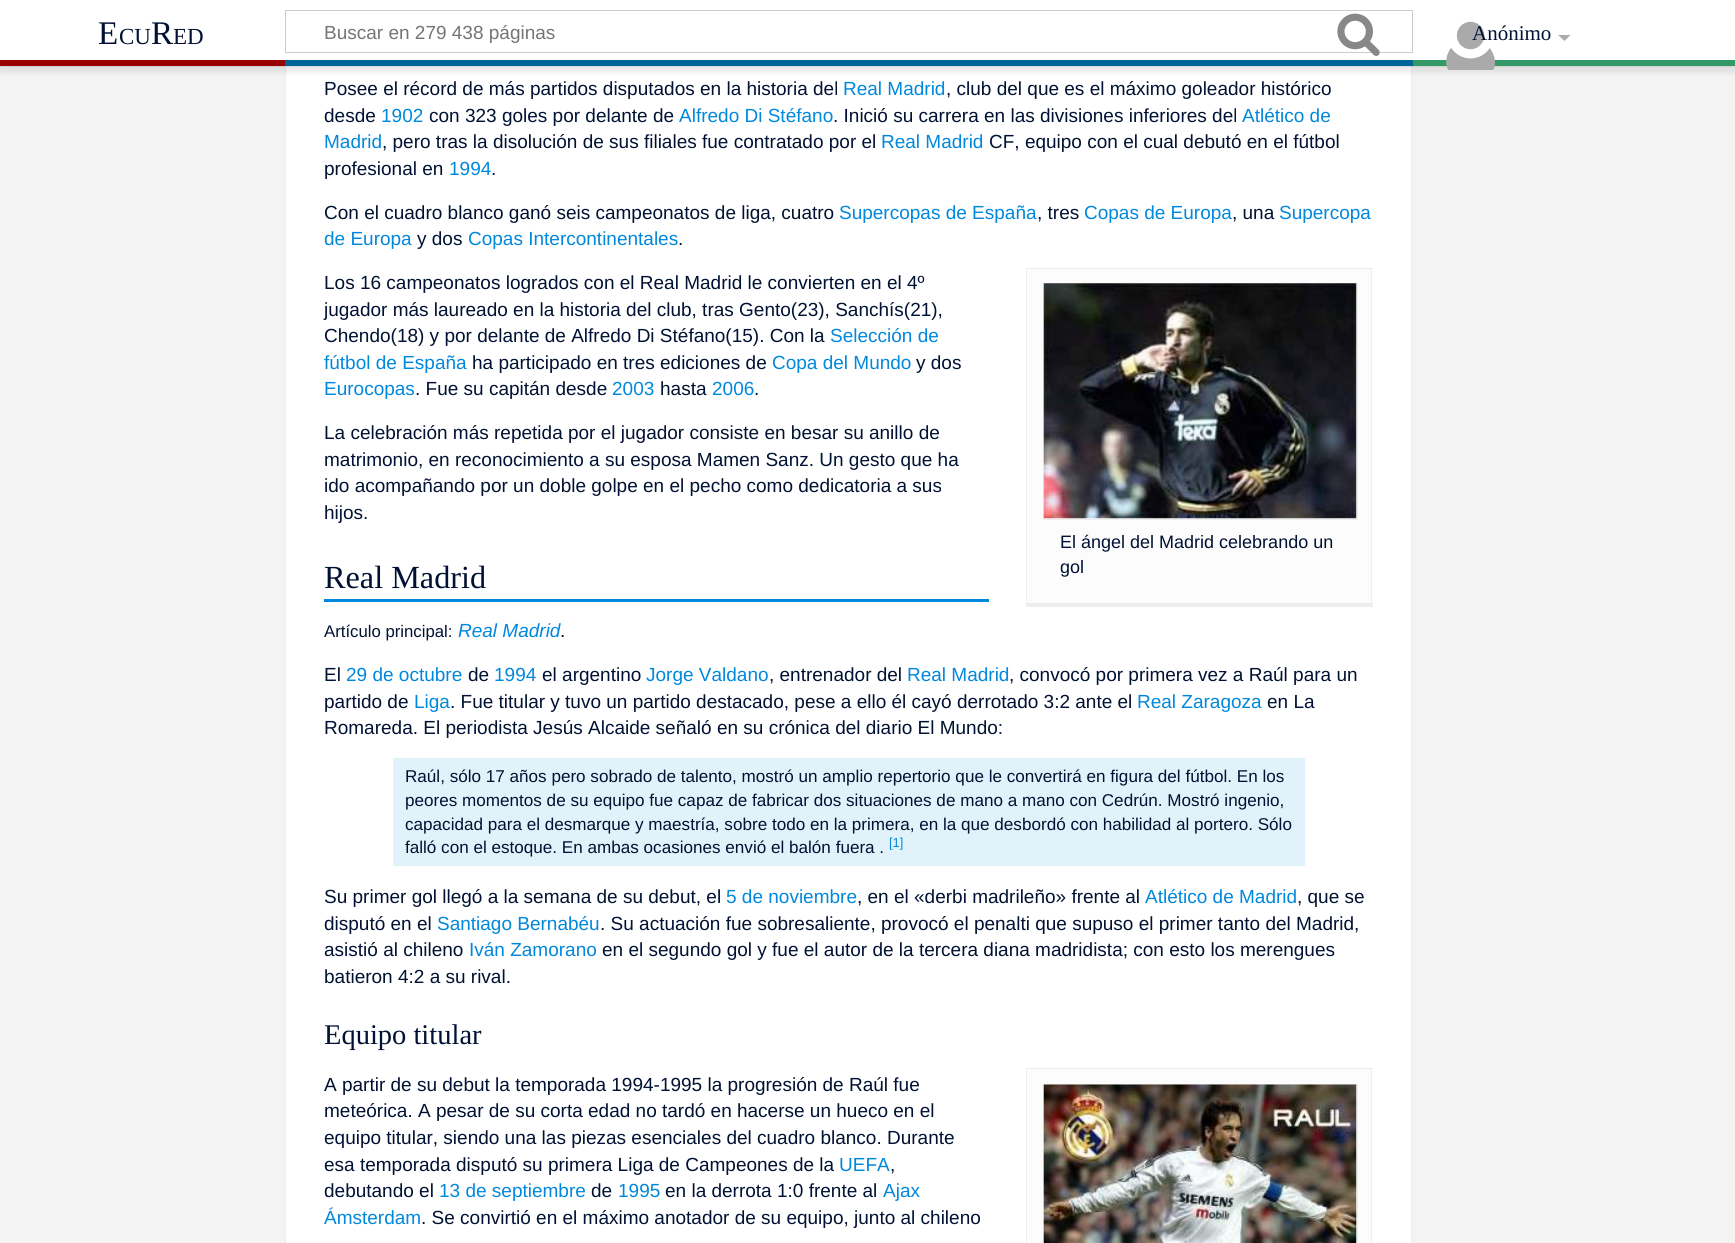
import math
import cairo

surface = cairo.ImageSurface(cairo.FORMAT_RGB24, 1735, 1243)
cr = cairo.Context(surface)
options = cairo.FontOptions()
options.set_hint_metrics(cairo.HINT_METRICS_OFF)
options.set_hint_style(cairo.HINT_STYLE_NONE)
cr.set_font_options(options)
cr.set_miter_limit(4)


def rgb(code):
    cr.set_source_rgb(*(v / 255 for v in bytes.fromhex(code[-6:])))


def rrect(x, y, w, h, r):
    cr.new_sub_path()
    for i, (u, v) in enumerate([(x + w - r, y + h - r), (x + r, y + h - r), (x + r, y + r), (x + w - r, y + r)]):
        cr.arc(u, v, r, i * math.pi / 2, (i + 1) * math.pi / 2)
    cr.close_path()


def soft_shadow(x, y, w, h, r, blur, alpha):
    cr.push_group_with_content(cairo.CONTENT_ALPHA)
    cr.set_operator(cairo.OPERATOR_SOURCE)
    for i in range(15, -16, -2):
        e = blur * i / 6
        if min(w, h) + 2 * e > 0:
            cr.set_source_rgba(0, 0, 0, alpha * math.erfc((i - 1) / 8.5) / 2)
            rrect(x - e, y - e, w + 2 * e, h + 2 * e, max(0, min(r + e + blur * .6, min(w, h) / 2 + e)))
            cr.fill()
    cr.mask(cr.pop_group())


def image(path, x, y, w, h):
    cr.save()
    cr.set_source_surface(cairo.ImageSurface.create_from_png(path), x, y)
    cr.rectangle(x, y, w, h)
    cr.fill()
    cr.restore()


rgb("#f3f3f3")
cr.paint()
for x, y, w, h, color in [
    (286, 66, 1125, 1177, "#ffffff"),
    (1411, 66, 1, 1177, "#eeeeee"),
    (285, 66, 1, 1177, "#eeeeee"),
]:
    rgb(color)
    cr.rectangle(x, y, w, h)
    cr.fill()
rgb("#000000")
soft_shadow(0, 60, 1735, 6, 0, 1, 0.2)
soft_shadow(-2, 61, 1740, 12, 0, 2, 0.07)
rgb("#ffffff")
cr.rectangle(0, 0, 1735, 60)
cr.fill()
cr.rectangle(285.5, 10.5, 1127, 42)
rgb("#cccccc")
cr.set_line_width(1)
cr.stroke()
image("img/1.png", 1337, 13, 43, 43)
rgb("#339966")
cr.rectangle(1413, 60, 322, 6)
cr.fill()
image("img/2.png", 1446, 21, 49, 49)
rgb("#aaaaaa")
cr.new_path()
cr.move_to(1570.5, 35)
cr.line_to(1564.5, 41)
cr.line_to(1558, 35)
cr.close_path()
cr.fill()
for x, y, w, h, color in [
    (0, 60, 285, 6, "#990000"),
    (285, 60, 1128, 6, "#006699"),
    (324, 599, 665, 3, "#0088dd"),
    (1028, 269, 343, 334, "#fcfcfc"),
    (1026, 268, 347, 1, "#eeeeee"),
    (1371, 268, 1, 338, "#eeeeee"),
    (1026, 603, 347, 4, "#eeeeee"),
    (1026, 268, 1, 338, "#eeeeee"),
]:
    rgb(color)
    cr.rectangle(x, y, w, h)
    cr.fill()
cr.rectangle(1043.5, 283.5, 314, 236)
cr.stroke()
image("img/3.png", 1043, 283, 314, 236)
for x, y, w, h, color in [
    (393, 758, 912, 108, "#e1f2fa"),
    (1028, 1069, 343, 174, "#fcfcfc"),
    (1026, 1068, 347, 1, "#eeeeee"),
    (1371, 1068, 1, 175, "#eeeeee"),
    (1026, 1068, 1, 175, "#eeeeee"),
]:
    rgb(color)
    cr.rectangle(x, y, w, h)
    cr.fill()
cr.rectangle(1043.5, 1084.5, 314, 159)
cr.stroke()
image("img/4.png", 1043, 1084, 314, 159)
cr.select_font_face("Liberation Serif")
cr.set_font_size(33)
rgb("#001133")
cr.move_to(98, 44)
cr.show_text("E")
cr.set_font_size(23)
cr.move_to(119, 44)
cr.show_text("CU")
cr.set_font_size(33)
cr.move_to(151, 44)
cr.show_text("R")
cr.set_font_size(23)
cr.move_to(173, 44)
cr.show_text("ED")
cr.select_font_face("Liberation Sans")
cr.set_font_size(19)
rgb("#757575")
cr.move_to(324, 39)
cr.show_text("Buscar en 279 438 páginas")
cr.select_font_face("Liberation Serif")
cr.set_font_size(21)
rgb("#001133")
cr.move_to(1472, 40)
cr.show_text("Anónimo")
cr.select_font_face("Liberation Sans")
cr.set_font_size(19)
cr.move_to(324, 95)
cr.show_text("Posee el récord de más partidos disputados en la historia del")
rgb("#0088dd")
cr.move_to(843, 95)
cr.show_text("Real Madrid")
rgb("#001133")
cr.move_to(946, 95)
cr.show_text(", club del que es el máximo goleador histórico")
cr.move_to(324, 122)
cr.show_text("desde")
rgb("#0088dd")
cr.move_to(381, 122)
cr.show_text("1902")
rgb("#001133")
cr.move_to(429, 122)
cr.show_text("con 323 goles por delante de")
rgb("#0088dd")
cr.move_to(679, 122)
cr.show_text("Alfredo Di Stéfano")
rgb("#001133")
cr.move_to(833, 122)
cr.show_text(". Inició su carrera en las divisiones inferiores del")
rgb("#0088dd")
cr.move_to(1242, 122)
cr.show_text("Atlético de")
cr.move_to(324, 148)
cr.show_text("Madrid")
rgb("#001133")
cr.move_to(382, 148)
cr.show_text(", pero tras la disolución de sus filiales fue contratado por el")
rgb("#0088dd")
cr.move_to(881, 148)
cr.show_text("Real Madrid")
rgb("#001133")
cr.move_to(989, 148)
cr.show_text("CF, equipo con el cual debutó en el fútbol")
cr.move_to(324, 175)
cr.show_text("profesional en")
rgb("#0088dd")
cr.move_to(449, 175)
cr.show_text("1994")
rgb("#001133")
cr.move_to(491, 175)
cr.show_text(".")
cr.move_to(324, 219)
cr.show_text("Con el cuadro blanco ganó seis campeonatos de liga, cuatro")
rgb("#0088dd")
cr.move_to(839, 219)
cr.show_text("Supercopas de España")
rgb("#001133")
cr.move_to(1037, 219)
cr.show_text(", tres")
rgb("#0088dd")
cr.move_to(1084, 219)
cr.show_text("Copas de Europa")
rgb("#001133")
cr.move_to(1232, 219)
cr.show_text(", una")
rgb("#0088dd")
cr.move_to(1279, 219)
cr.show_text("Supercopa")
cr.move_to(324, 245)
cr.show_text("de Europa")
rgb("#001133")
cr.move_to(417, 245)
cr.show_text("y dos")
rgb("#0088dd")
cr.move_to(468, 245)
cr.show_text("Copas Intercontinentales")
rgb("#001133")
for x, y, s in [
    (678, 245, "."),
    (324, 289, "Los 16 campeonatos logrados con el Real Madrid le convierten en el 4º"),
    (324, 316, "jugador más laureado en la historia del club, tras Gento(23), Sanchís(21),"),
    (324, 342, "Chendo(18) y por delante de Alfredo Di Stéfano(15). Con la"),
]:
    cr.move_to(x, y)
    cr.show_text(s)
rgb("#0088dd")
cr.move_to(830, 342)
cr.show_text("Selección de")
cr.move_to(324, 369)
cr.show_text("fútbol de España")
rgb("#001133")
cr.move_to(472, 369)
cr.show_text("ha participado en tres ediciones de")
rgb("#0088dd")
cr.move_to(772, 369)
cr.show_text("Copa del Mundo")
rgb("#001133")
cr.move_to(916, 369)
cr.show_text("y dos")
rgb("#0088dd")
cr.move_to(324, 395)
cr.show_text("Eurocopas")
rgb("#001133")
cr.move_to(415, 395)
cr.show_text(". Fue su capitán desde")
rgb("#0088dd")
cr.move_to(612, 395)
cr.show_text("2003")
rgb("#001133")
cr.move_to(660, 395)
cr.show_text("hasta")
rgb("#0088dd")
cr.move_to(712, 395)
cr.show_text("2006")
rgb("#001133")
for x, y, s in [
    (754, 395, "."),
    (324, 439, "La celebración más repetida por el jugador consiste en besar su anillo de"),
    (324, 466, "matrimonio, en reconocimiento a su esposa Mamen Sanz. Un gesto que ha"),
    (324, 492, "ido acompañando por un doble golpe en el pecho como dedicatoria a sus"),
    (324, 519, "hijos."),
]:
    cr.move_to(x, y)
    cr.show_text(s)
cr.select_font_face("Liberation Serif")
cr.set_font_size(32.25)
cr.move_to(324, 588)
cr.show_text("Real Madrid")
cr.select_font_face("Liberation Sans")
cr.set_font_size(18)
cr.move_to(1060, 548)
cr.show_text("El ángel del Madrid celebrando un")
cr.move_to(1060, 573)
cr.show_text("gol")
cr.set_font_size(16.75)
cr.move_to(324, 637)
cr.show_text("Artículo principal:")
cr.select_font_face("Liberation Sans", cairo.FONT_SLANT_ITALIC)
cr.set_font_size(19)
rgb("#0088dd")
cr.move_to(458, 637)
cr.show_text("Real Madrid")
cr.select_font_face("Liberation Sans")
rgb("#001133")
cr.move_to(560, 637)
cr.show_text(".")
cr.move_to(324, 681)
cr.show_text("El")
rgb("#0088dd")
cr.move_to(346, 681)
cr.show_text("29 de octubre")
rgb("#001133")
cr.move_to(468, 681)
cr.show_text("de")
rgb("#0088dd")
cr.move_to(494, 681)
cr.show_text("1994")
rgb("#001133")
cr.move_to(542, 681)
cr.show_text("el argentino")
rgb("#0088dd")
cr.move_to(646, 681)
cr.show_text("Jorge Valdano")
rgb("#001133")
cr.move_to(769, 681)
cr.show_text(", entrenador del")
rgb("#0088dd")
cr.move_to(907, 681)
cr.show_text("Real Madrid")
rgb("#001133")
cr.move_to(1009, 681)
cr.show_text(", convocó por primera vez a Raúl para un")
cr.move_to(324, 708)
cr.show_text("partido de")
rgb("#0088dd")
cr.move_to(414, 708)
cr.show_text("Liga")
rgb("#001133")
cr.move_to(450, 708)
cr.show_text(". Fue titular y tuvo un partido destacado, pese a ello él cayó derrotado 3:2 ante el")
rgb("#0088dd")
cr.move_to(1137, 708)
cr.show_text("Real Zaragoza")
rgb("#001133")
cr.move_to(1267, 708)
cr.show_text("en La")
cr.move_to(324, 734)
cr.show_text("Romareda. El periodista Jesús Alcaide señaló en su crónica del diario El Mundo:")
cr.set_font_size(17.1)
for x, y, s in [
    (405, 782, "Raúl, sólo 17 años pero sobrado de talento, mostró un amplio repertorio que le convertirá en figura del fútbol. En los"),
    (405, 806, "peores momentos de su equipo fue capaz de fabricar dos situaciones de mano a mano con Cedrún. Mostró ingenio,"),
    (405, 830, "capacidad para el desmarque y maestría, sobre todo en la primera, en la que desbordó con habilidad al portero. Sólo"),
    (405, 853, "falló con el estoque. En ambas ocasiones envió el balón fuera ."),
]:
    cr.move_to(x, y)
    cr.show_text(s)
cr.set_font_size(13)
rgb("#0088dd")
cr.move_to(889, 847)
cr.show_text("[1]")
cr.set_font_size(19)
rgb("#001133")
cr.move_to(324, 903)
cr.show_text("Su primer gol llegó a la semana de su debut, el")
rgb("#0088dd")
cr.move_to(726, 903)
cr.show_text("5 de noviembre")
rgb("#001133")
cr.move_to(857, 903)
cr.show_text(", en el «derbi madrileño» frente al")
rgb("#0088dd")
cr.move_to(1145, 903)
cr.show_text("Atlético de Madrid")
rgb("#001133")
cr.move_to(1297, 903)
cr.show_text(", que se")
cr.move_to(324, 930)
cr.show_text("disputó en el")
rgb("#0088dd")
cr.move_to(437, 930)
cr.show_text("Santiago Bernabéu")
rgb("#001133")
cr.move_to(600, 930)
cr.show_text(". Su actuación fue sobresaliente, provocó el penalti que supuso el primer tanto del Madrid,")
cr.move_to(324, 956)
cr.show_text("asistió al chileno")
rgb("#0088dd")
cr.move_to(469, 956)
cr.show_text("Iván Zamorano")
rgb("#001133")
cr.move_to(602, 956)
cr.show_text("en el segundo gol y fue el autor de la tercera diana madridista; con esto los merengues")
cr.move_to(324, 983)
cr.show_text("batieron 4:2 a su rival.")
cr.select_font_face("Liberation Serif")
cr.set_font_size(28.5)
cr.move_to(324, 1044)
cr.show_text("Equipo titular")
cr.select_font_face("Liberation Sans")
cr.set_font_size(19)
for x, y, s in [
    (324, 1091, "A partir de su debut la temporada 1994-1995 la progresión de Raúl fue"),
    (324, 1117, "meteórica. A pesar de su corta edad no tardó en hacerse un hueco en el"),
    (324, 1144, "equipo titular, siendo una las piezas esenciales del cuadro blanco. Durante"),
    (324, 1171, "esa temporada disputó su primera Liga de Campeones de la"),
]:
    cr.move_to(x, y)
    cr.show_text(s)
rgb("#0088dd")
cr.move_to(839, 1171)
cr.show_text("UEFA")
rgb("#001133")
cr.move_to(890, 1171)
cr.show_text(",")
cr.move_to(324, 1197)
cr.show_text("debutando el")
rgb("#0088dd")
cr.move_to(439, 1197)
cr.show_text("13 de septiembre")
rgb("#001133")
cr.move_to(591, 1197)
cr.show_text("de")
rgb("#0088dd")
cr.move_to(618, 1197)
cr.show_text("1995")
rgb("#001133")
cr.move_to(665, 1197)
cr.show_text("en la derrota 1:0 frente al")
rgb("#0088dd")
cr.move_to(883, 1197)
cr.show_text("Ajax")
cr.move_to(324, 1224)
cr.show_text("Ámsterdam")
rgb("#001133")
cr.move_to(421, 1224)
cr.show_text(". Se convirtió en el máximo anotador de su equipo, junto al chileno")
surface.write_to_png("page.png")
